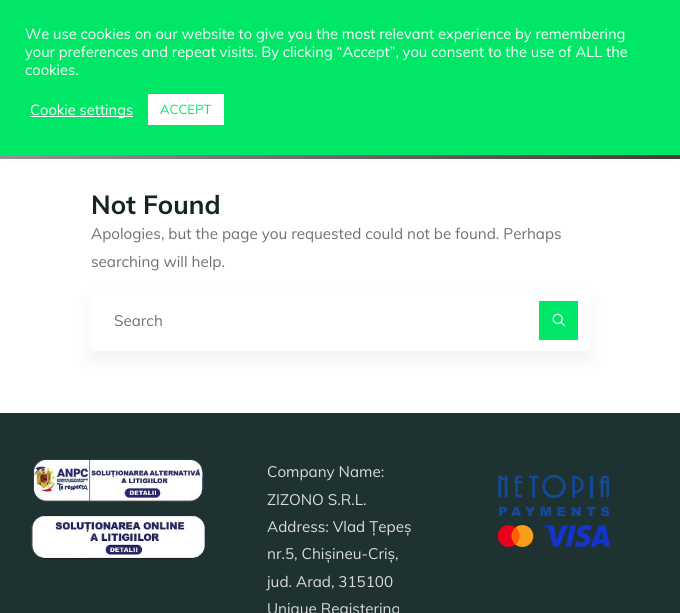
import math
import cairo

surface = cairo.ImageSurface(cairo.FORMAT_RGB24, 680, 613)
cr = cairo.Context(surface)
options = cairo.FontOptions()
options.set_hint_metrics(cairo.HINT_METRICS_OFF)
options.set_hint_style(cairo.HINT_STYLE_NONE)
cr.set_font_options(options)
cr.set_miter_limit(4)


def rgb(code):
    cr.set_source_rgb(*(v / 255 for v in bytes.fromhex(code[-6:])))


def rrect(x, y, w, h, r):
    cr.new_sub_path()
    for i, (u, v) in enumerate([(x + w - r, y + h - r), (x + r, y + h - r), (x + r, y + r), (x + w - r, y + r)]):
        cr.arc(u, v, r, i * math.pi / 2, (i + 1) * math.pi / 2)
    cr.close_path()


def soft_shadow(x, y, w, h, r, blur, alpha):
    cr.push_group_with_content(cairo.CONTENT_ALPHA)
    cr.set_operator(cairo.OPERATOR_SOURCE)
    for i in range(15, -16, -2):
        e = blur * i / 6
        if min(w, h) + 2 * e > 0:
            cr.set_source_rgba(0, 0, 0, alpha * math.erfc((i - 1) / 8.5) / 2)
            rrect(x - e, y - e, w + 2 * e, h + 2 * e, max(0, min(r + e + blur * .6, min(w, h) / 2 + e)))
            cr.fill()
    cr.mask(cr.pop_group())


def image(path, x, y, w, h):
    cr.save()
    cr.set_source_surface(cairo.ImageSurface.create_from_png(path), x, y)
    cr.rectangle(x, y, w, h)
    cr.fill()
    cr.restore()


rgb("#ffffff")
cr.paint()
gradient = cairo.LinearGradient(-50, 69, 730, -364)
gradient.add_color_stop_rgba(0, 0.569, 0.569, 0.569, 1)
gradient.add_color_stop_rgba(1, 0.039, 0.012, 0.012, 1)
cr.set_source(gradient)
cr.rectangle(0, 155, 680, 4)
cr.fill()
rgb("#acabab")
soft_shadow(0, -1, 680, 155, 0, 5, 0.3)
for x, y, w, h, color in [
    (0, 0, 680, 155, "#00e667"),
    (30, 116, 103, 1, "#ffffff"),
    (148, 94, 76, 31, "#ffffff"),
]:
    rgb(color)
    cr.rectangle(x, y, w, h)
    cr.fill()
cr.save()
cr.set_fill_rule(cairo.FILL_RULE_EVEN_ODD)
cr.new_path()
cr.move_to(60, 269)
cr.line_to(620, 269)
cr.line_to(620, 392)
cr.line_to(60, 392)
cr.close_path()
cr.move_to(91, 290)
cr.line_to(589, 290)
cr.line_to(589, 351)
cr.line_to(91, 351)
cr.close_path()
cr.clip()
rgb("#000000")
soft_shadow(91, 300, 498, 61, 0, 10, 0.05)
cr.restore()
rgb("#00e667")
cr.rectangle(539, 301, 39, 39)
cr.fill()
image("img/1.png", 552, 313, 14, 14)
rgb("#1e3231")
cr.rectangle(0, 413, 680, 200)
cr.fill()
image("img/2.png", 33, 459, 171, 43)
image("img/3.png", 31, 515, 175, 44)
image("img/4.png", 497, 475, 113, 72)
cr.select_font_face("Muli")
cr.set_font_size(14.65)
rgb("#ffffff")
for x, y, s in [
    (25, 39, "We use cookies on our website to give you the most relevant experience by remembering"),
    (25, 57, "your preferences and repeat visits. By clicking “Accept”, you consent to the use of ALL the"),
    (25, 75, "cookies."),
    (30, 115, "Cookie settings"),
]:
    cr.move_to(x, y)
    cr.show_text(s)
cr.set_font_size(13)
rgb("#00e667")
cr.move_to(160, 114)
cr.show_text("ACCEPT")
cr.select_font_face("Muli", cairo.FONT_SLANT_NORMAL, cairo.FONT_WEIGHT_BOLD)
cr.set_font_size(26)
rgb("#162521")
cr.move_to(91, 214)
cr.show_text("Not Found")
cr.select_font_face("Muli")
cr.set_font_size(15.2)
rgb("#707070")
for x, y, s in [
    (91, 239, "Apologies, but the page you requested could not be found. Perhaps"),
    (91, 267, "searching will help."),
    (114, 326, "Search"),
]:
    cr.move_to(x, y)
    cr.show_text(s)
rgb("#dbdbdb")
for x, y, s in [
    (267, 477, "Company Name:"),
    (267, 505, "ZIZONO S.R.L."),
    (267, 532, "Address: Vlad Țepeș"),
    (267, 559, "nr.5, Chișineu-Criș,"),
    (267, 587, "jud. Arad, 315100"),
    (267, 614, "Unique Registering"),
]:
    cr.move_to(x, y)
    cr.show_text(s)
surface.write_to_png("page.png")
